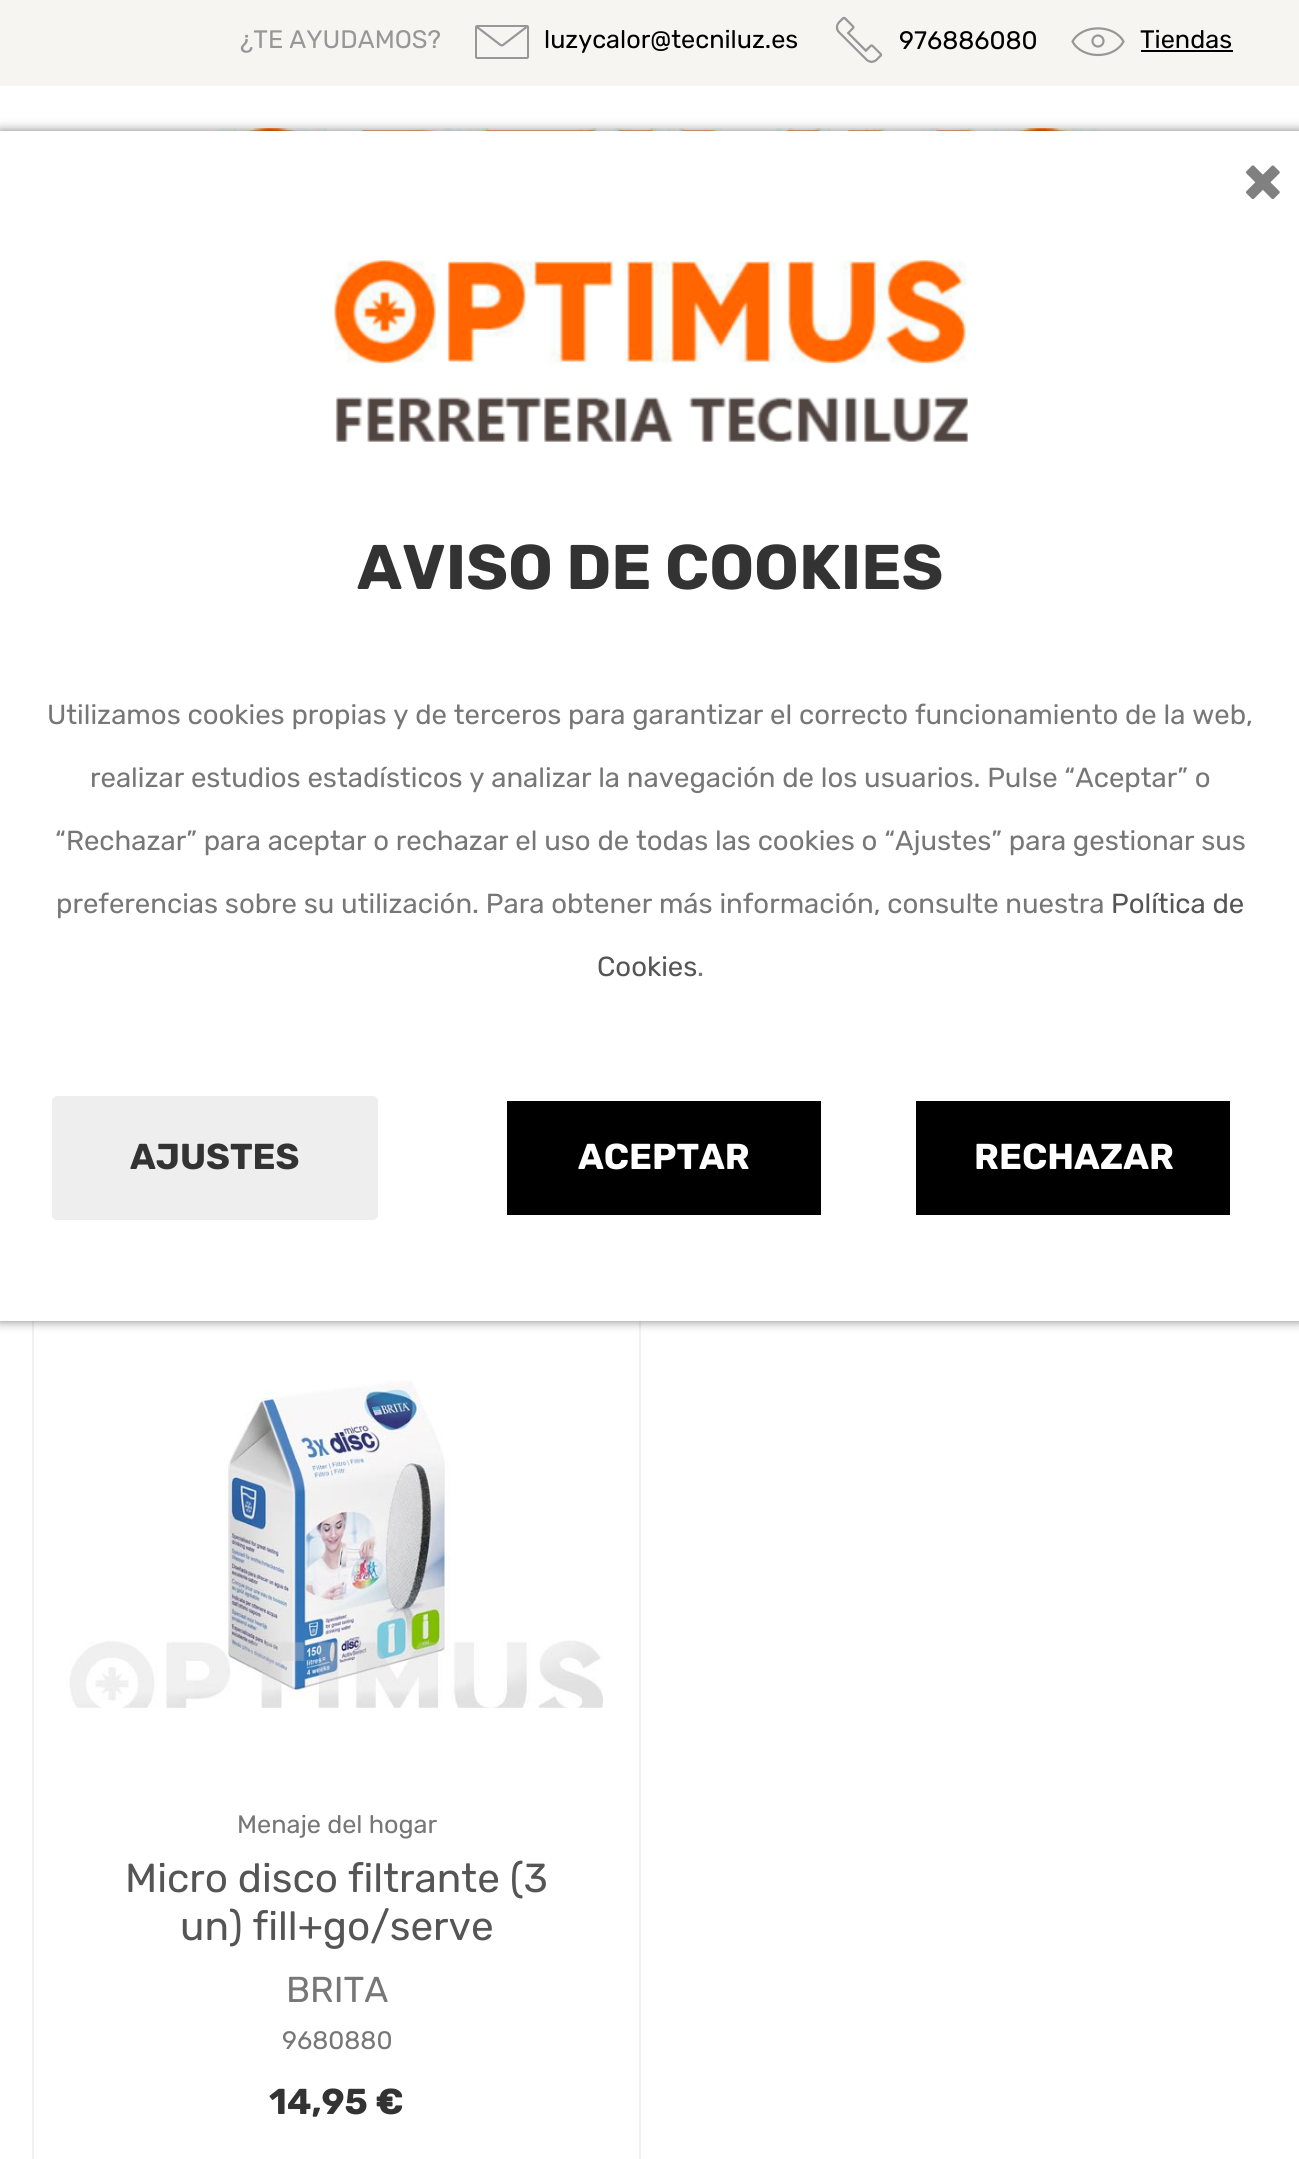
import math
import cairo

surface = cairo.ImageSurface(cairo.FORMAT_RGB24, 1299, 2159)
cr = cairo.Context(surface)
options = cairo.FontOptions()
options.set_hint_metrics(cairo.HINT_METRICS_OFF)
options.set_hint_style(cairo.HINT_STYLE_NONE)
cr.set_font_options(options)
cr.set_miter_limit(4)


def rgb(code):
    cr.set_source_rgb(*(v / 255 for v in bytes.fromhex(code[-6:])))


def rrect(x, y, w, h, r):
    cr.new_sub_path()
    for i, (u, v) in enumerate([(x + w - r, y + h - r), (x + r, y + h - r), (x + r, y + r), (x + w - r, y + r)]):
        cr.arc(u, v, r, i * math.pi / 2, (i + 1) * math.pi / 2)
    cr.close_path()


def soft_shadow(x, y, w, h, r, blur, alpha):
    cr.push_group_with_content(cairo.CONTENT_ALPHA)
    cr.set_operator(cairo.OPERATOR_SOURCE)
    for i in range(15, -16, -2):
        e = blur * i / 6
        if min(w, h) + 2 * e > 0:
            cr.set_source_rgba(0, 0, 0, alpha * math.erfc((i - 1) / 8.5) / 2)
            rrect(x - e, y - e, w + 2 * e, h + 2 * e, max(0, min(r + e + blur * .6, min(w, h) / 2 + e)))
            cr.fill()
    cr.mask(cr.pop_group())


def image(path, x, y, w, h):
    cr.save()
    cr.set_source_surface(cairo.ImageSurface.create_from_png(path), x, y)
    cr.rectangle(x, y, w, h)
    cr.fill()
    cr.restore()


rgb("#ffffff")
cr.paint()
rgb("#f7f5f2")
cr.rectangle(0, 0, 1299, 86)
cr.fill()
rrect(476, 26, 52, 32, 1)
rgb("#979797")
cr.stroke()
cr.new_path()
cr.move_to(477, 27)
cr.line_to(500.5, 45)
cr.curve_to(501, 45.5, 502.5, 45.5, 503, 45)
cr.line_to(526.5, 27)
cr.set_line_width(2.2)
cr.stroke()
image("img/1.png", 835, 16, 48, 47)
cr.new_path()
cr.move_to(1123.5, 41.5)
cr.curve_to(1114, 59.5, 1082, 59.5, 1072.5, 41.5)
cr.curve_to(1082, 24, 1114, 24, 1123.5, 41.5)
cr.close_path()
cr.stroke()
rgb("#000000")
cr.rectangle(1141, 50, 92, 2)
cr.fill()
cr.arc(1098, 41, 5.5, 0, 2 * math.pi)
rgb("#979797")
cr.stroke()
image("img/2.png", 200, 128, 903, 3)
cr.rectangle(33, 1279, 607, 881)
rgb("#f1f1f1")
cr.set_line_width(2)
cr.stroke()
image("img/3.png", 69, 1380, 534, 328)
rgb("#000000")
soft_shadow(0, 131, 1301, 1190, 0, 5.5, 0.5)
rgb("#ffffff")
cr.rectangle(0, 131, 1299, 1190)
cr.fill()
image("img/4.png", 334, 260, 634, 182)
rgb("#eeeeee")
rrect(54.5, 1098.5, 321, 119, 2.5)
cr.fill_preserve()
cr.set_line_width(5)
cr.stroke()
rgb("#000000")
rrect(504.5, 1098.5, 319, 119, 2.5)
cr.fill_preserve()
rgb("#ffffff")
cr.stroke()
rgb("#000000")
rrect(913.5, 1098.5, 319, 119, 2.5)
cr.fill_preserve()
rgb("#ffffff")
cr.stroke()
cr.select_font_face("Rubik")
cr.set_font_size(25.25)
rgb("#979797")
cr.move_to(240, 48)
cr.show_text("¿TE AYUDAMOS?")
rgb("#000000")
for x, y, s in [
    (544, 48, "luzycalor@tecniluz.es"),
    (899, 49, "976886080"),
    (1140, 48, "Tiendas"),
]:
    cr.move_to(x, y)
    cr.show_text(s)
rgb("#777777")
cr.move_to(237, 1833)
cr.show_text("Menaje del hogar")
cr.set_font_size(40.5)
rgb("#555555")
cr.move_to(125, 1892)
cr.show_text("Micro disco filtrante (3")
cr.move_to(180, 1940)
cr.show_text("un) fill+go/serve")
cr.set_font_size(36)
rgb("#777777")
cr.move_to(286, 2002)
cr.show_text("BRITA")
cr.set_font_size(25.25)
cr.move_to(282, 2049)
cr.show_text("9680880")
cr.select_font_face("Rubik", cairo.FONT_SLANT_NORMAL, cairo.FONT_WEIGHT_BOLD)
cr.set_font_size(36)
rgb("#333333")
cr.move_to(269, 2114)
cr.show_text("14,95 €")
cr.set_font_size(66)
rgb("#808080")
cr.move_to(1243, 202)
cr.show_text("×")
cr.set_font_size(63)
rgb("#333333")
cr.move_to(357, 589)
cr.show_text("AVISO DE COOKIES")
cr.select_font_face("Rubik")
cr.set_font_size(27.55)
rgb("#777777")
for x, y, s in [
    (47, 724, "Utilizamos cookies propias y de terceros para garantizar el correcto funcionamiento de la web,"),
    (90, 787, "realizar estudios estadísticos y analizar la navegación de los usuarios. Pulse “Aceptar” o"),
    (55, 850, "“Rechazar” para aceptar o rechazar el uso de todas las cookies o “Ajustes” para gestionar sus"),
    (56, 913, "preferencias sobre su utilización. Para obtener más información, consulte nuestra"),
]:
    cr.move_to(x, y)
    cr.show_text(s)
rgb("#555555")
cr.move_to(1111, 913)
cr.show_text("Política de")
cr.move_to(597, 976)
cr.show_text("Cookies")
rgb("#777777")
cr.move_to(697, 976)
cr.show_text(".")
cr.select_font_face("Rubik", cairo.FONT_SLANT_NORMAL, cairo.FONT_WEIGHT_BOLD)
cr.set_font_size(36)
rgb("#333333")
cr.move_to(130, 1169)
cr.show_text("AJUSTES")
rgb("#ffffff")
cr.move_to(578, 1169)
cr.show_text("ACEPTAR")
cr.move_to(974, 1169)
cr.show_text("RECHAZAR")
surface.write_to_png("page.png")
